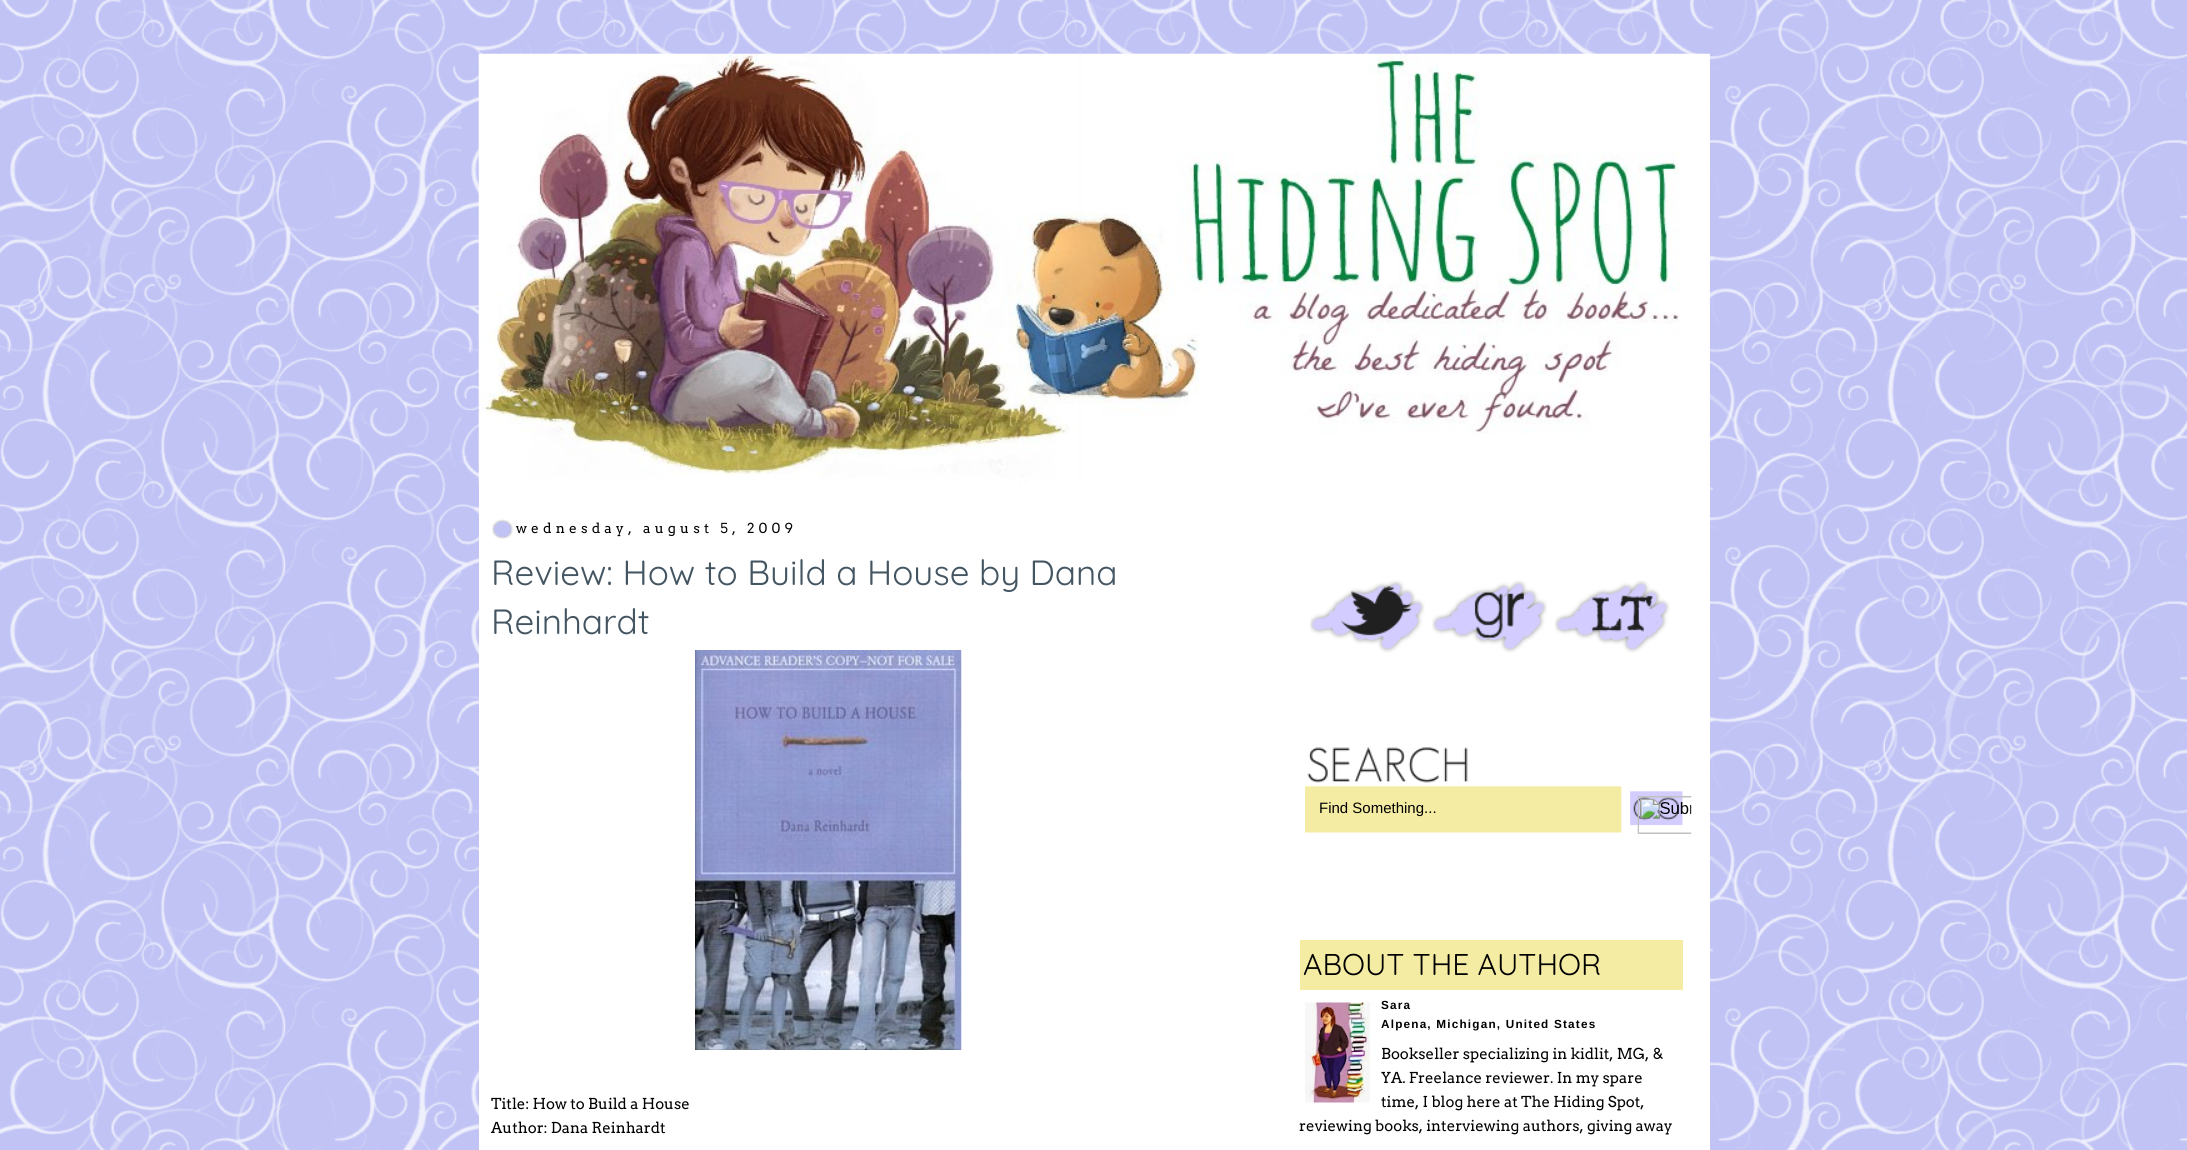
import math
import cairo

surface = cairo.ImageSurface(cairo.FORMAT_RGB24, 2187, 1150)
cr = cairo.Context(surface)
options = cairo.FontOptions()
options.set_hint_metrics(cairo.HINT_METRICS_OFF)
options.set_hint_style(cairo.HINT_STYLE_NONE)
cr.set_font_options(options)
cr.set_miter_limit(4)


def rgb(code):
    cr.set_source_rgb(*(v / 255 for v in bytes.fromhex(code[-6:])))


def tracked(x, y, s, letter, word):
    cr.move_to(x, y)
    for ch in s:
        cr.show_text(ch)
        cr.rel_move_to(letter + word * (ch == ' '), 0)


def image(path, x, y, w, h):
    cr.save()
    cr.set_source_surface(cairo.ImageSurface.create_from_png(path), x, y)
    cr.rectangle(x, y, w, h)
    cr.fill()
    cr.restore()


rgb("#ffffff")
cr.paint()
image("img/1.png", 0, 0, 2187, 1150)
image("img/2.png", 478, 53, 1232, 432)
rgb("#ffffff")
cr.rectangle(479, 485, 1231, 665)
cr.fill()
image("img/3.png", 492, 519, 21, 20)
image("img/4.png", 695, 650, 267, 400)
image("img/5.png", 1310, 580, 115, 73)
image("img/6.png", 1432, 580, 115, 73)
image("img/7.png", 1555, 580, 115, 73)
image("img/8.png", 1305, 747, 378, 86)
image("img/9.png", 1637, 796, 55, 38)
cr.save()
cr.rectangle(1291, 485, 400, 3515)
cr.clip()
cr.rectangle(1638.5, 796.5, 86, 37)
rgb("#c0c0c0")
cr.set_line_width(1)
cr.stroke()
cr.restore()
rgb("#f5eca3")
cr.rectangle(1300, 940, 383, 50)
cr.fill()
image("img/10.png", 1305, 1002, 65, 101)
cr.select_font_face("Arvo")
cr.set_font_size(13.75)
rgb("#000000")
tracked(516, 533, "wednesday, august 5, 2009", 4.1, 0)
cr.select_font_face("Quicksand Light")
cr.set_font_size(35)
rgb("#445562")
cr.move_to(491, 585)
cr.show_text("Review: How to Build a House by Dana")
cr.move_to(491, 634)
cr.show_text("Reinhardt")
cr.select_font_face("Arvo")
cr.set_font_size(15)
rgb("#000000")
cr.move_to(491, 1109)
cr.show_text("Title: How to Build a House")
cr.move_to(491, 1133)
cr.show_text("Author: Dana Reinhardt")
cr.select_font_face("Liberation Sans")
cr.move_to(1319, 813)
cr.show_text("Find Something...")
cr.select_font_face("Quicksand Light")
cr.set_font_size(30)
cr.move_to(1303, 975)
cr.show_text("ABOUT THE AUTHOR")
cr.select_font_face("Liberation Sans", cairo.FONT_SLANT_NORMAL, cairo.FONT_WEIGHT_BOLD)
cr.set_font_size(11.75)
tracked(1381, 1009, "Sara", 1.2, 0)
tracked(1381, 1028, "Alpena, Michigan, United States", 1.2, 0)
cr.select_font_face("Arvo")
cr.set_font_size(15)
for x, y, s in [
    (1381, 1059, "Bookseller specializing in kidlit, MG, &"),
    (1381, 1083, "YA. Freelance reviewer. In my spare"),
    (1381, 1107, "time, I blog here at The Hiding Spot,"),
    (1299, 1131, "reviewing books, interviewing authors, giving away"),
]:
    cr.move_to(x, y)
    cr.show_text(s)
surface.write_to_png("page.png")
